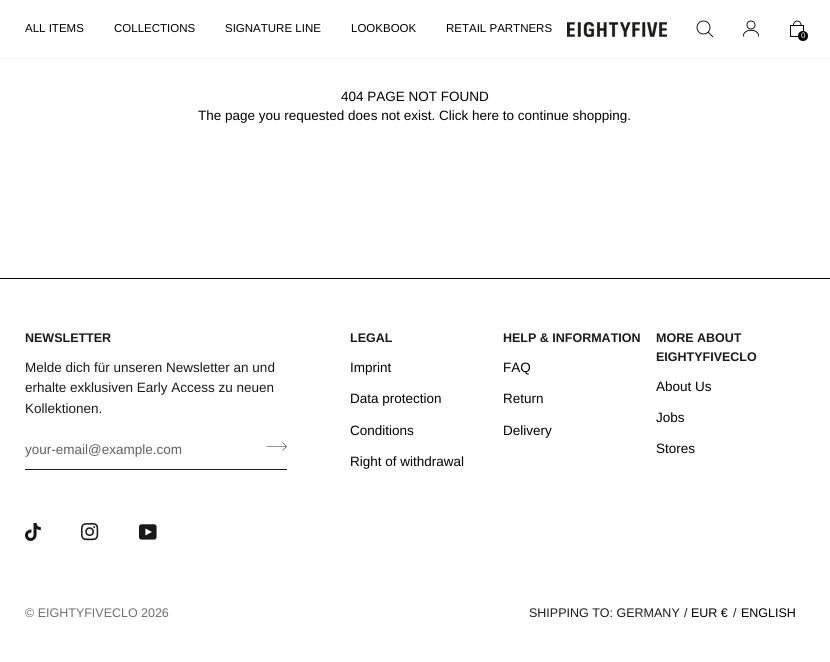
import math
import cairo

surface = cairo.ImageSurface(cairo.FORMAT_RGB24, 830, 662)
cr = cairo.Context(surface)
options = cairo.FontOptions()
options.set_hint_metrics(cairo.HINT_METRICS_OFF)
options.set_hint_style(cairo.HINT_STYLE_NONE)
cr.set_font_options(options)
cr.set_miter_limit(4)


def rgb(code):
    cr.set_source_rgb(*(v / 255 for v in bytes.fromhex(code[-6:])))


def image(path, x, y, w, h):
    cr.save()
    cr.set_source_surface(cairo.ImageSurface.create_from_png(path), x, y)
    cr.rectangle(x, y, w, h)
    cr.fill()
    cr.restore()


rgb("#ffffff")
cr.paint()
rgb("#f7f5f4")
cr.rectangle(0, 58, 830, 1)
cr.fill()
image("img/1.png", 567, 22, 100, 15)
cr.new_path()
cr.move_to(713, 37)
cr.line_to(708, 32)
rgb("#000000")
cr.set_line_width(0.9)
cr.stroke()
cr.arc(703.5, 27.5, 6.5, 0, 2 * math.pi)
cr.stroke()
cr.save()
cr.rectangle(743, 19, 16, 20)
cr.clip()
cr.new_path()
cr.move_to(743, 37)
cr.curve_to(743, 28, 759, 28, 759, 37)
cr.stroke()
cr.restore()
cr.arc(751, 25, 4, 0, 2 * math.pi)
cr.stroke()
cr.new_path()
cr.move_to(801, 25.5)
cr.curve_to(801, 19.5, 793.5, 19.5, 793.5, 25.5)
cr.stroke()
cr.rectangle(790.5, 25.5, 13, 11)
cr.set_line_width(1)
cr.stroke()
cr.arc(803, 36, 5, 0, 2 * math.pi)
cr.fill()
cr.rectangle(0, 278, 830, 1)
cr.fill()
rgb("#1a1a1a")
cr.rectangle(25, 469, 262, 1)
cr.fill()
cr.new_path()
cr.move_to(282.5, 442.5)
cr.line_to(286.5, 446.5)
cr.line_to(282.5, 450.5)
cr.move_to(266.5, 446.5)
cr.line_to(286.5, 446.5)
cr.set_line_width(0.5)
cr.stroke()
image("img/2.png", 25, 523, 16, 18)
image("img/3.png", 81, 523, 18, 18)
image("img/4.png", 139, 524, 18, 16)
cr.select_font_face("Liberation Sans")
cr.set_font_size(11.5)
rgb("#000000")
for x, y, s in [
    (25, 32, "ALL ITEMS"),
    (114, 32, "COLLECTIONS"),
    (225, 32, "SIGNATURE LINE"),
    (351, 32, "LOOKBOOK"),
    (446, 32, "RETAIL PARTNERS"),
]:
    cr.move_to(x, y)
    cr.show_text(s)
cr.set_font_size(8)
rgb("#ffffff")
cr.move_to(801, 38)
cr.show_text("0")
cr.set_font_size(13.5)
rgb("#000000")
cr.move_to(341, 101)
cr.show_text("404 PAGE NOT FOUND")
cr.move_to(198, 120)
cr.show_text("The page you requested does not exist. Click here to continue shopping.")
cr.select_font_face("Liberation Sans", cairo.FONT_SLANT_NORMAL, cairo.FONT_WEIGHT_BOLD)
cr.set_font_size(12.5)
rgb("#1a1a1a")
cr.move_to(25, 342)
cr.show_text("NEWSLETTER")
cr.select_font_face("Liberation Sans")
cr.set_font_size(13.5)
for x, y, s in [
    (25, 372, "Melde dich für unseren Newsletter an und"),
    (25, 392, "erhalte exklusiven Early Access zu neuen"),
    (25, 413, "Kollektionen."),
]:
    cr.move_to(x, y)
    cr.show_text(s)
rgb("#5f5f5f")
cr.move_to(25, 454)
cr.show_text("your-email@example.com")
cr.select_font_face("Liberation Sans", cairo.FONT_SLANT_NORMAL, cairo.FONT_WEIGHT_BOLD)
cr.set_font_size(12.5)
rgb("#1a1a1a")
cr.move_to(350, 342)
cr.show_text("LEGAL")
cr.select_font_face("Liberation Sans")
cr.set_font_size(13.5)
rgb("#000000")
for x, y, s in [
    (350, 372, "Imprint"),
    (350, 403, "Data protection"),
    (350, 435, "Conditions"),
    (350, 466, "Right of withdrawal"),
]:
    cr.move_to(x, y)
    cr.show_text(s)
cr.select_font_face("Liberation Sans", cairo.FONT_SLANT_NORMAL, cairo.FONT_WEIGHT_BOLD)
cr.set_font_size(12.5)
rgb("#1a1a1a")
cr.move_to(503, 342)
cr.show_text("HELP & INFORMATION")
cr.select_font_face("Liberation Sans")
cr.set_font_size(13.5)
rgb("#000000")
for x, y, s in [
    (503, 372, "FAQ"),
    (503, 403, "Return"),
    (503, 435, "Delivery"),
]:
    cr.move_to(x, y)
    cr.show_text(s)
cr.select_font_face("Liberation Sans", cairo.FONT_SLANT_NORMAL, cairo.FONT_WEIGHT_BOLD)
cr.set_font_size(12.5)
rgb("#1a1a1a")
cr.move_to(656, 342)
cr.show_text("MORE ABOUT")
cr.move_to(656, 361)
cr.show_text("EIGHTYFIVECLO")
cr.select_font_face("Liberation Sans")
cr.set_font_size(13.5)
rgb("#000000")
for x, y, s in [
    (656, 391, "About Us"),
    (656, 422, "Jobs"),
    (656, 453, "Stores"),
]:
    cr.move_to(x, y)
    cr.show_text(s)
cr.set_font_size(12.5)
rgb("#6f6f6f")
cr.move_to(25, 617)
cr.show_text("© EIGHTYFIVECLO")
cr.move_to(141, 617)
cr.show_text("2026")
rgb("#1a1a1a")
cr.move_to(529, 617)
cr.show_text("SHIPPING TO: GERMANY")
cr.move_to(684, 617)
cr.show_text("/")
rgb("#000000")
cr.move_to(691, 617)
cr.show_text("EUR €")
rgb("#1a1a1a")
cr.move_to(733, 617)
cr.show_text("/")
rgb("#000000")
cr.move_to(741, 617)
cr.show_text("ENGLISH")
surface.write_to_png("page.png")
